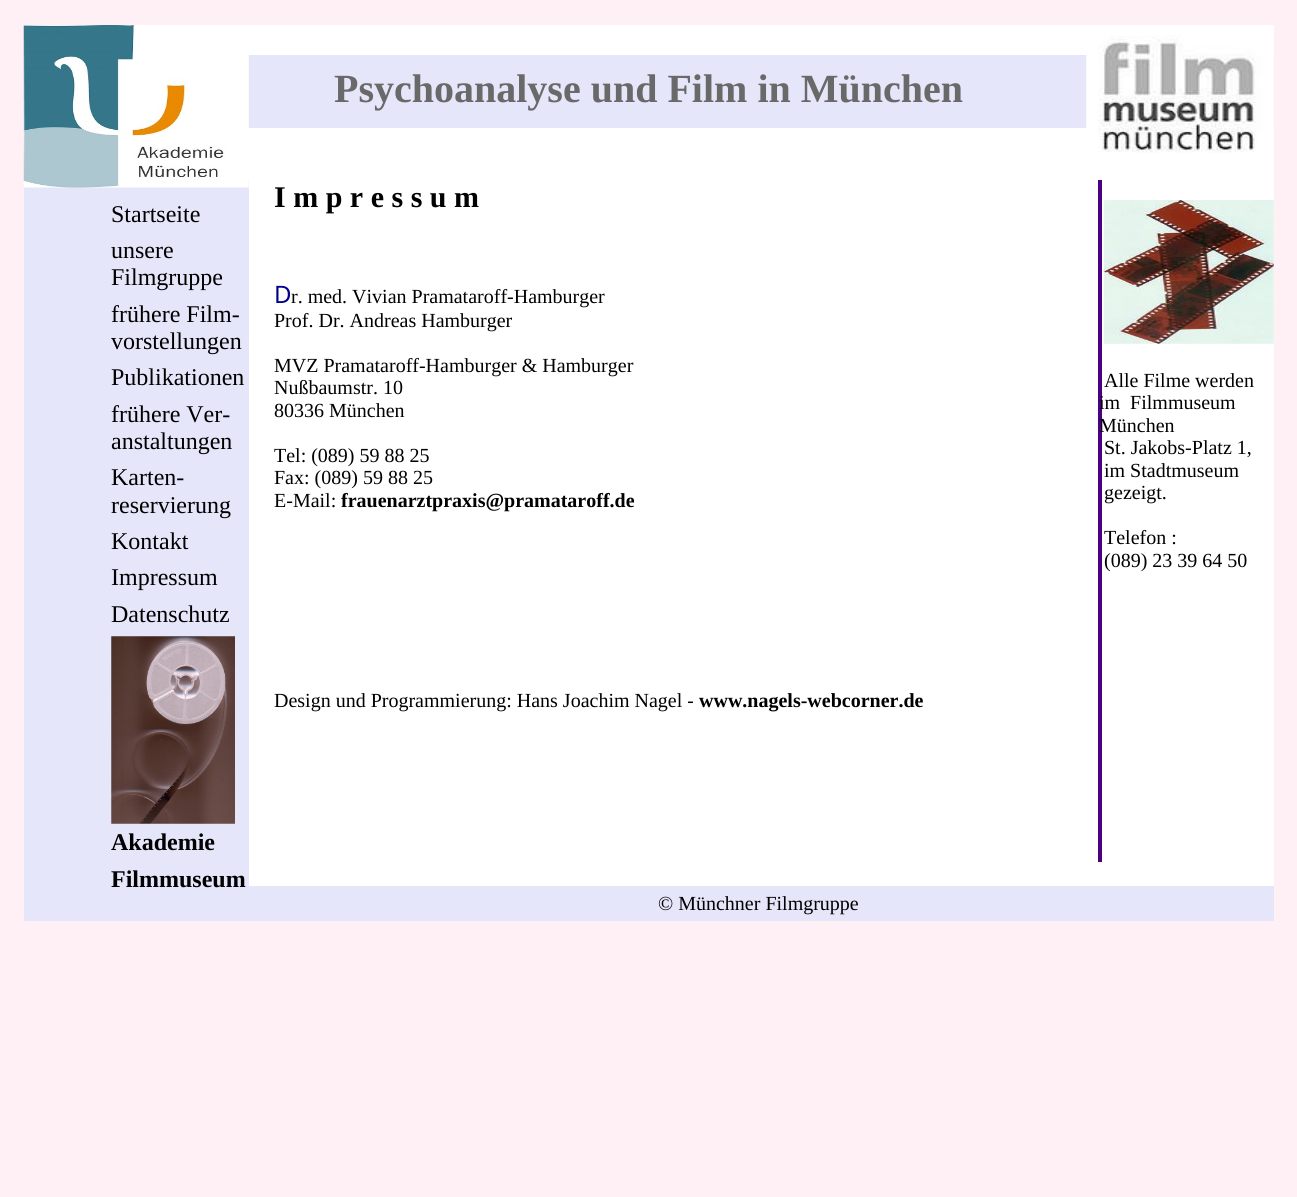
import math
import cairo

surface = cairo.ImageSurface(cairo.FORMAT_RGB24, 1297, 1197)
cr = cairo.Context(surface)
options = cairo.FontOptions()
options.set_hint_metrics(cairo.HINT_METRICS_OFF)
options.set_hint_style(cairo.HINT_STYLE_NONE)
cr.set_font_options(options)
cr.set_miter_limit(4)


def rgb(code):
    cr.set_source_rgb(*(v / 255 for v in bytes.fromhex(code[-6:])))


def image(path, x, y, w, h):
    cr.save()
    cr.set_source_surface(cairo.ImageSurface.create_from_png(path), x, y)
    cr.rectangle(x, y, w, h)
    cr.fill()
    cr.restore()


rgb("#fff0f5")
cr.paint()
for x, y, w, h, color in [
    (248, 25, 1026, 861, "#ffffff"),
    (248, 55, 1026, 73, "#e6e6fa"),
    (24, 180, 225, 706, "#e6e6fa"),
]:
    rgb(color)
    cr.rectangle(x, y, w, h)
    cr.fill()
image("img/1.png", 23, 25, 226, 163)
image("img/2.png", 1086, 35, 188, 118)
image("img/3.png", 111, 636, 124, 188)
rgb("#4b0081")
cr.rectangle(1098, 180, 4, 682)
cr.fill()
image("img/4.png", 1103, 200, 171, 144)
rgb("#e6e6fa")
cr.rectangle(24, 886, 1250, 35)
cr.fill()
cr.select_font_face("Liberation Serif", cairo.FONT_SLANT_NORMAL, cairo.FONT_WEIGHT_BOLD)
cr.set_font_size(40)
rgb("#696969")
cr.move_to(334, 102)
cr.show_text("Psychoanalyse und Film in München")
cr.select_font_face("Liberation Serif")
cr.set_font_size(24)
rgb("#000000")
for x, y, s in [
    (111, 222, "Startseite"),
    (111, 258, "unsere"),
    (111, 285, "Filmgruppe"),
    (111, 322, "frühere Film-"),
    (111, 349, "vorstellungen"),
    (111, 385, "Publikationen"),
    (111, 422, "frühere Ver-"),
    (111, 449, "anstaltungen"),
    (111, 485, "Karten-"),
    (111, 513, "reservierung"),
    (111, 549, "Kontakt"),
    (111, 585, "Impressum"),
    (111, 622, "Datenschutz"),
]:
    cr.move_to(x, y)
    cr.show_text(s)
cr.select_font_face("Liberation Serif", cairo.FONT_SLANT_NORMAL, cairo.FONT_WEIGHT_BOLD)
cr.move_to(111, 850)
cr.show_text("Akademie")
cr.move_to(111, 887)
cr.show_text("Filmmuseum")
cr.set_font_size(30)
cr.move_to(274, 207)
cr.show_text("I m p r e s s u m")
cr.select_font_face("Noto Sans")
cr.set_font_size(24)
rgb("#00008b")
cr.move_to(274, 303)
cr.show_text("D")
cr.select_font_face("Liberation Serif")
cr.set_font_size(20)
rgb("#000000")
for x, y, s in [
    (291, 303, "r. med. Vivian Pramataroff-Hamburger"),
    (274, 327, "Prof. Dr. Andreas Hamburger"),
    (274, 372, "MVZ Pramataroff-Hamburger & Hamburger"),
    (274, 394, "Nußbaumstr. 10"),
    (274, 417, "80336 München"),
    (274, 462, "Tel: (089) 59 88 25"),
    (274, 484, "Fax: (089) 59 88 25"),
    (274, 507, "E-Mail:"),
]:
    cr.move_to(x, y)
    cr.show_text(s)
cr.select_font_face("Liberation Serif", cairo.FONT_SLANT_NORMAL, cairo.FONT_WEIGHT_BOLD)
cr.move_to(341, 507)
cr.show_text("frauenarztpraxis@pramataroff.de")
cr.select_font_face("Liberation Serif")
cr.move_to(274, 707)
cr.show_text("Design und Programmierung: Hans Joachim Nagel -")
cr.select_font_face("Liberation Serif", cairo.FONT_SLANT_NORMAL, cairo.FONT_WEIGHT_BOLD)
cr.move_to(699, 707)
cr.show_text("www.nagels-webcorner.de")
cr.select_font_face("Liberation Serif")
for x, y, s in [
    (1104, 387, "Alle Filme werden"),
    (1099, 409, "im  Filmmuseum"),
    (1099, 432, "München"),
    (1104, 454, "St. Jakobs-Platz 1,"),
    (1104, 477, "im Stadtmuseum"),
    (1104, 499, "gezeigt."),
    (1104, 544, "Telefon :"),
    (1104, 567, "(089) 23 39 64 50"),
    (658, 910, "© Münchner Filmgruppe"),
]:
    cr.move_to(x, y)
    cr.show_text(s)
surface.write_to_png("page.png")
